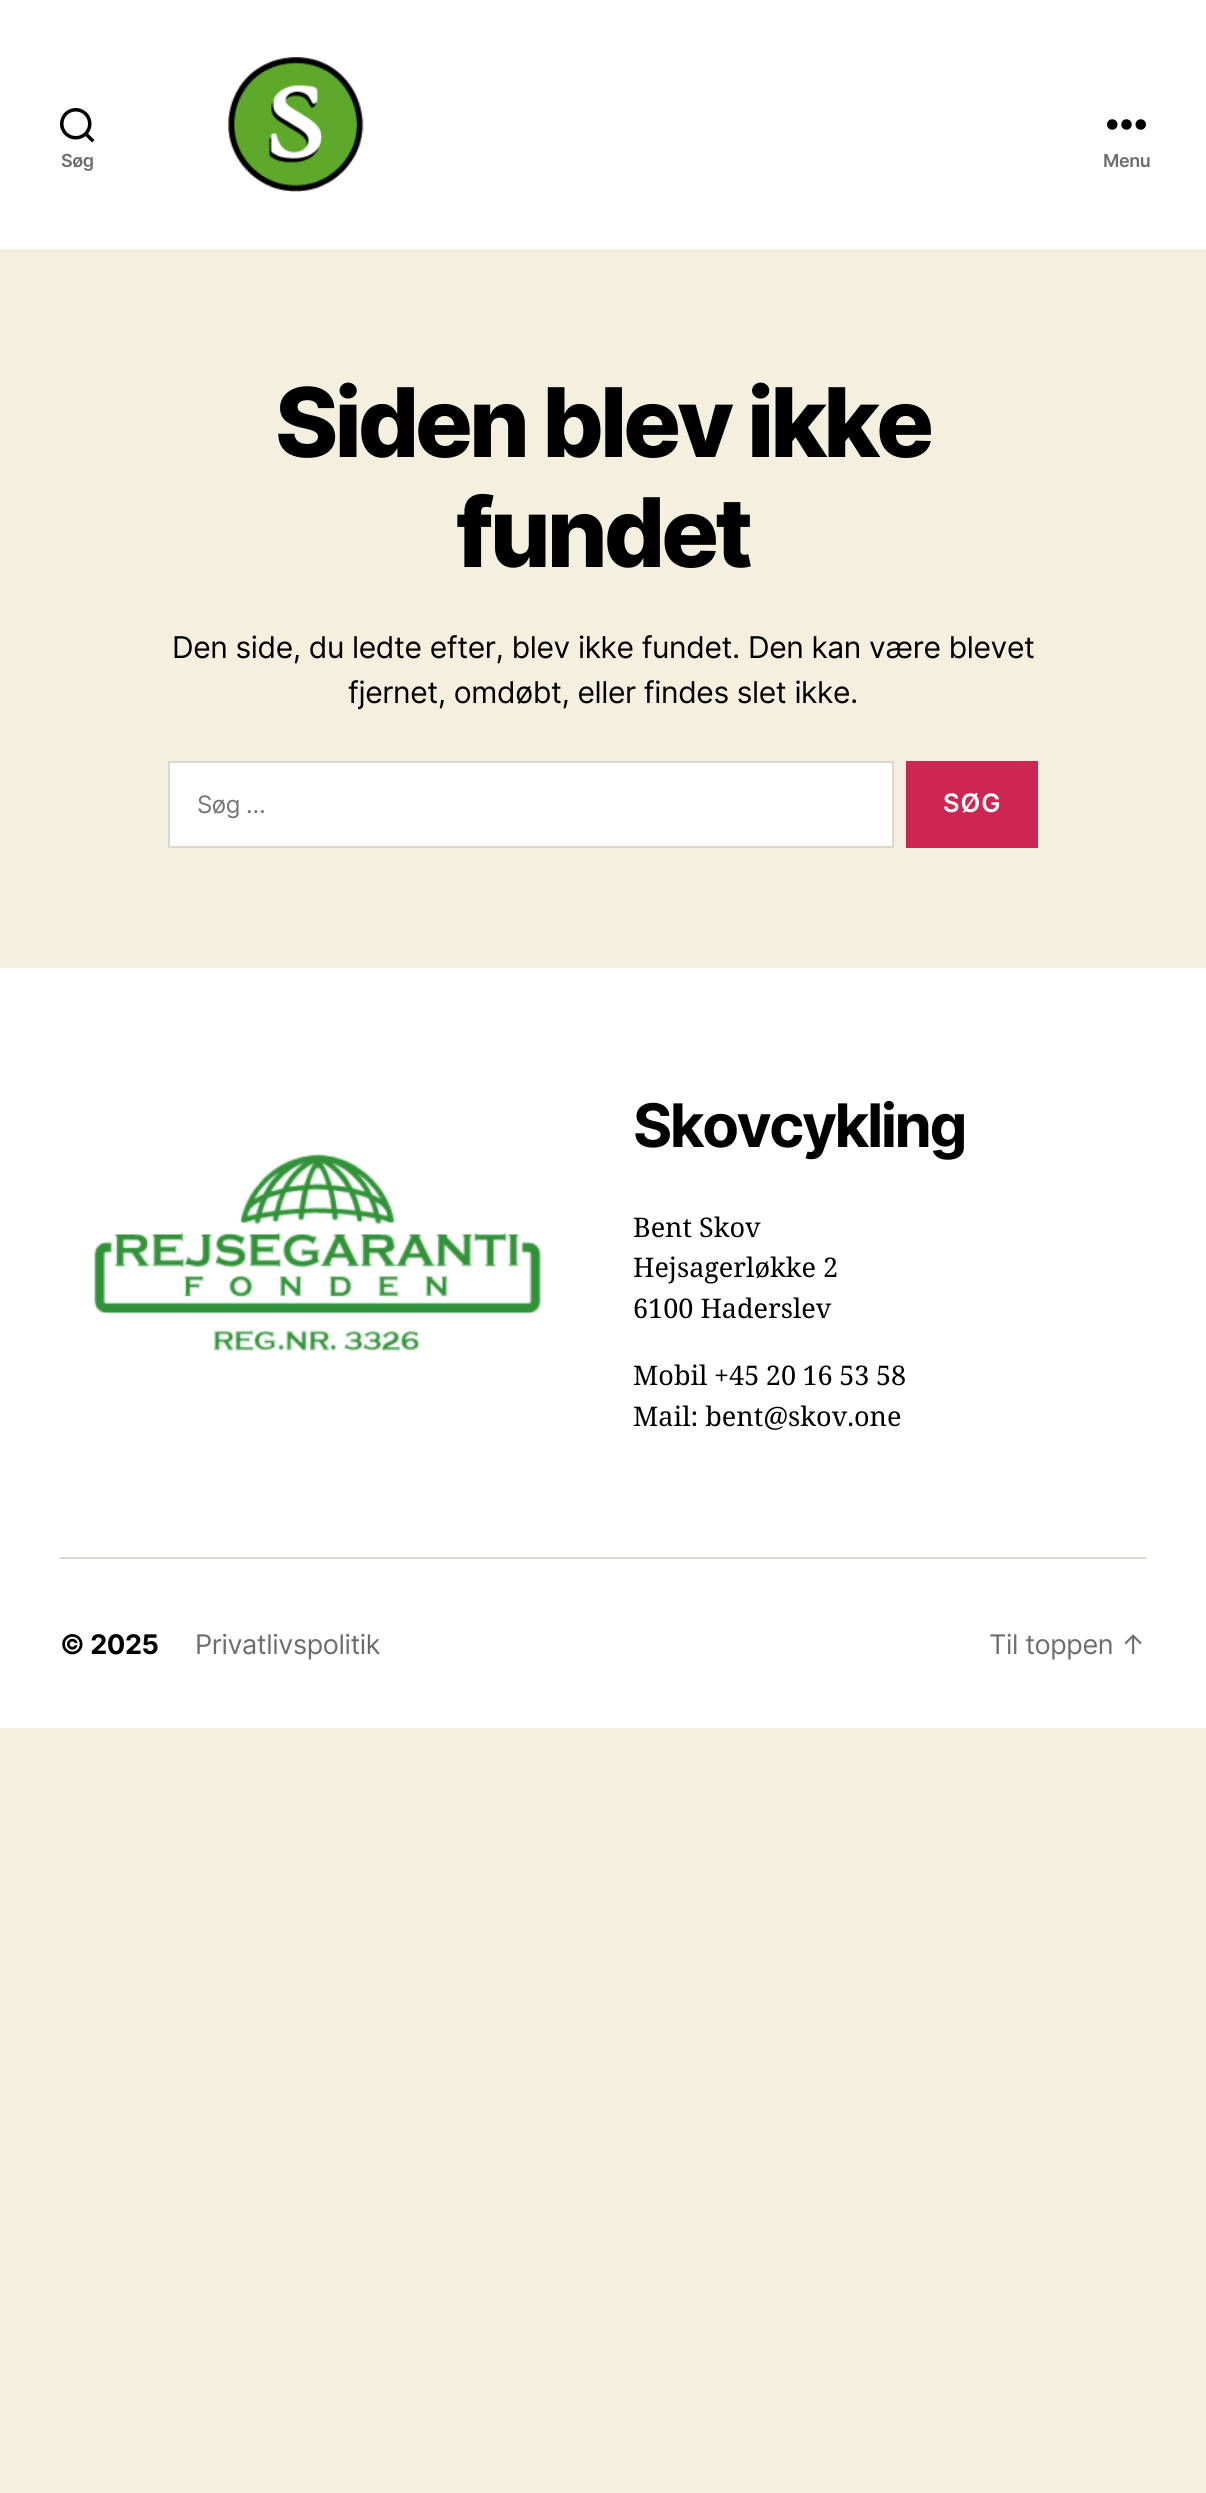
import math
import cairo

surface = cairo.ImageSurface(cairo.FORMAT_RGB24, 1206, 2493)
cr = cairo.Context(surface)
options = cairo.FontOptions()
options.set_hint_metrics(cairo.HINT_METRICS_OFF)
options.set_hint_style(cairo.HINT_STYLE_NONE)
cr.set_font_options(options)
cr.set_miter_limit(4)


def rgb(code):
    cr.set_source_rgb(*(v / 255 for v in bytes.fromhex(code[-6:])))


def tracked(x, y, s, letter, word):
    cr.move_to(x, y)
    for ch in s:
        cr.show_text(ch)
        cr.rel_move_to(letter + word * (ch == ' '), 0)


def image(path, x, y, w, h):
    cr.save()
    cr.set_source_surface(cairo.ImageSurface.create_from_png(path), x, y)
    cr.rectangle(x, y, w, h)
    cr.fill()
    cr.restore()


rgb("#f5efe0")
cr.paint()
rgb("#ffffff")
cr.rectangle(0, 0, 1206, 249)
cr.fill()
image("img/1.png", 60, 108, 35, 35)
image("img/2.png", 228, 57, 136, 135)
image("img/3.png", 1107, 119, 39, 11)
cr.rectangle(169, 762, 724, 85)
cr.fill_preserve()
rgb("#dcd7ca")
cr.stroke()
for x, y, w, h, color in [
    (906, 761, 132, 87, "#cd2653"),
    (0, 968, 1206, 760, "#ffffff"),
    (60, 1557, 1086, 2, "#dcd7ca"),
]:
    rgb(color)
    cr.rectangle(x, y, w, h)
    cr.fill()
image("img/4.png", 94, 1153, 448, 199)
cr.select_font_face("Inter SemiBold")
cr.set_font_size(18)
rgb("#6d6d6d")
tracked(61, 167, "Søg", -0.4, 0)
tracked(1103, 167, "Menu", -0.4, 0)
cr.select_font_face("Inter ExtraBold")
cr.set_font_size(96)
rgb("#000000")
tracked(275, 457, "Siden blev ikke", -4, 0)
tracked(456, 567, "fundet", -4, 0)
cr.select_font_face("Inter")
cr.set_font_size(30)
tracked(172, 658, "Den side, du ledte efter, blev ikke fundet. Den kan være blevet", -0.4, 0)
tracked(348, 703, "fjernet, omdøbt, eller findes slet ikke.", -0.4, 0)
cr.set_font_size(24)
rgb("#757575")
tracked(197, 813, "Søg …", -0.5, 0)
cr.select_font_face("Inter SemiBold")
cr.set_font_size(25.5)
rgb("#ffffff")
tracked(943, 812, "SØG", 1, 0)
cr.select_font_face("Inter", cairo.FONT_SLANT_NORMAL, cairo.FONT_WEIGHT_BOLD)
cr.set_font_size(60)
rgb("#000000")
tracked(633, 1147, "Skovcykling", -2.5, 0)
cr.select_font_face("Noto Serif")
cr.set_font_size(27)
for x, y, s in [
    (633, 1237, "Bent Skov"),
    (633, 1277, "Hejsagerløkke 2"),
    (633, 1318, "6100 Haderslev"),
]:
    cr.move_to(x, y)
    cr.show_text(s)
tracked(633, 1385, "Mobil +45 20 16 53 58", 0, -0.5)
cr.move_to(633, 1426)
cr.show_text("Mail: bent@skov.one")
cr.select_font_face("Inter", cairo.FONT_SLANT_NORMAL, cairo.FONT_WEIGHT_BOLD)
tracked(60, 1654, "© 2025", -0.4, 0)
cr.select_font_face("Inter")
rgb("#6d6d6d")
tracked(195, 1654, "Privatlivspolitik", -0.4, 0)
tracked(989, 1654, "Til toppen ↑", -0.4, 0)
surface.write_to_png("page.png")
